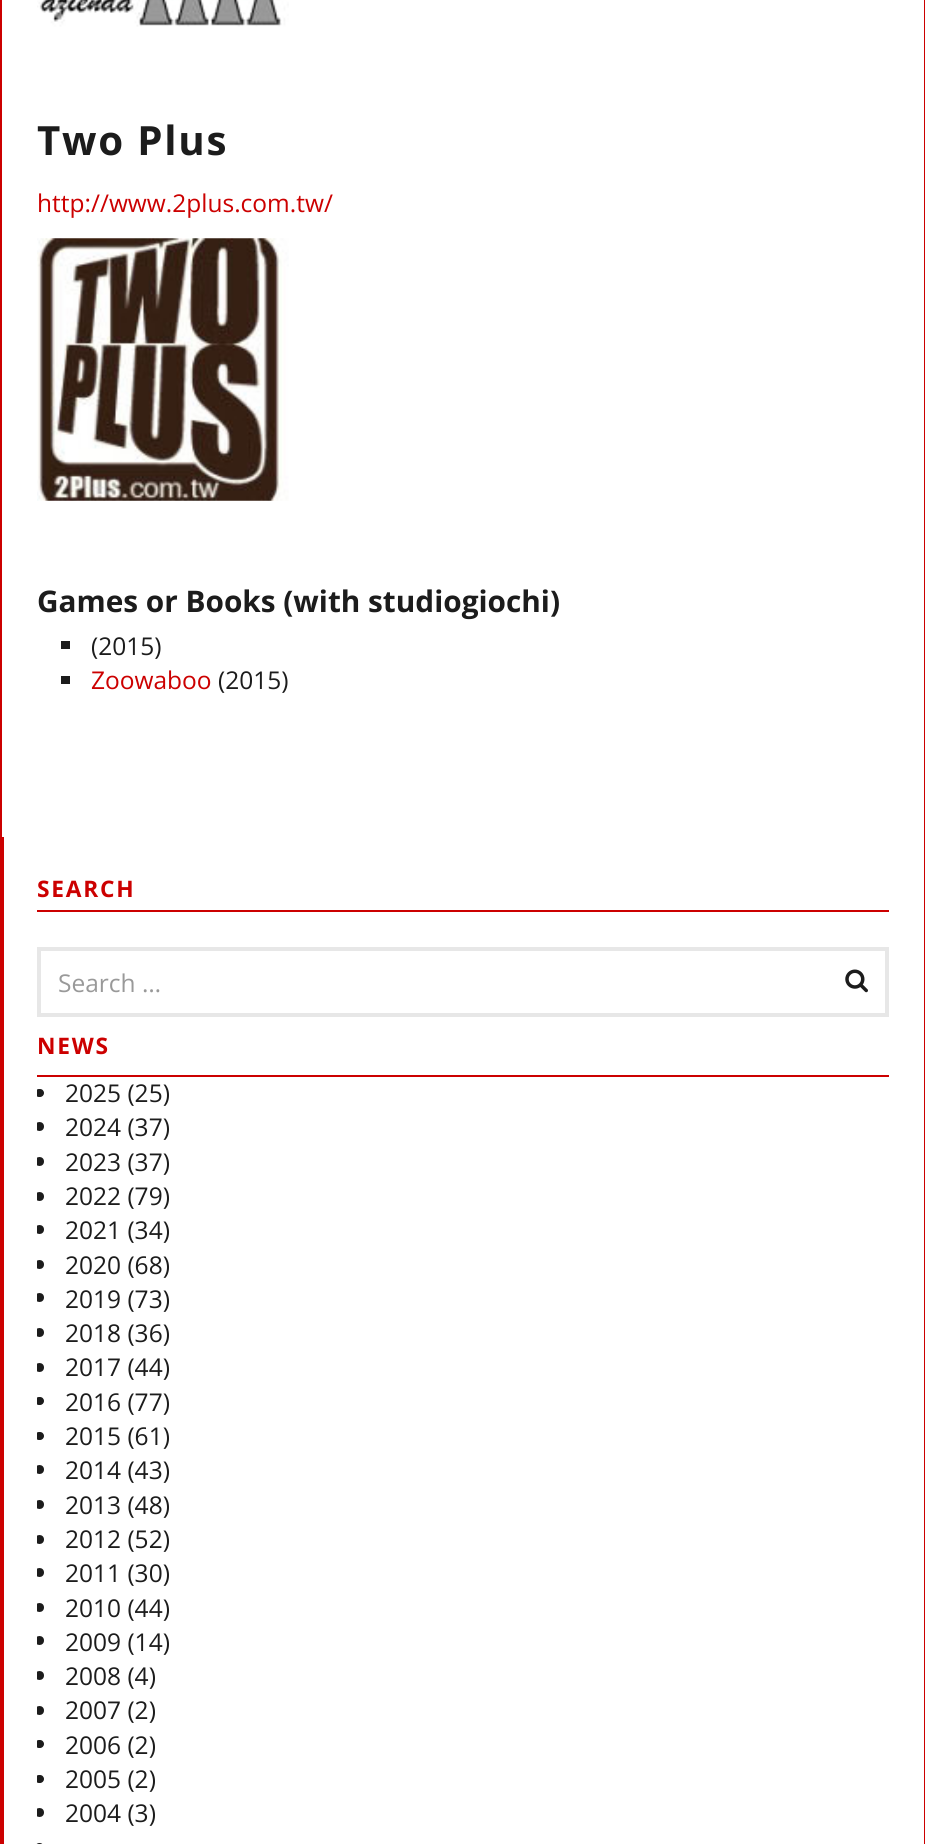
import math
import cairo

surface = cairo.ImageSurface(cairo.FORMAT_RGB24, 925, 1844)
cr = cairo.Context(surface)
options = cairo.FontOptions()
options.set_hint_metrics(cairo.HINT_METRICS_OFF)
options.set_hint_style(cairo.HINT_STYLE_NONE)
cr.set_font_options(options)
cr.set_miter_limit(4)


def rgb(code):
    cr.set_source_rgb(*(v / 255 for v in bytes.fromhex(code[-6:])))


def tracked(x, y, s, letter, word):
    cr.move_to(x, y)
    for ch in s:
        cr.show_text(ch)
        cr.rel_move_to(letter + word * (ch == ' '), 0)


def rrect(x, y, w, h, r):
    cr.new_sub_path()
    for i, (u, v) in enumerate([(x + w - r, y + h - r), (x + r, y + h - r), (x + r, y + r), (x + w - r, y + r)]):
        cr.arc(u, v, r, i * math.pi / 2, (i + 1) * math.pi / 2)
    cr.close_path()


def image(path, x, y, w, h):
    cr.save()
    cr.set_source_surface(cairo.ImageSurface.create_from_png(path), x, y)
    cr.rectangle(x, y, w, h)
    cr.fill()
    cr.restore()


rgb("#ffffff")
cr.paint()
rgb("#cc0000")
cr.rectangle(924, 0, 1, 1844)
cr.fill()
cr.rectangle(0, 0, 2, 1844)
cr.fill()
image("img/1.png", 37, 0, 252, 27)
image("img/2.png", 37, 238, 252, 263)
for x, y, w, h, color in [
    (61, 641, 9, 8, "#1c1c1c"),
    (61, 676, 9, 8, "#1c1c1c"),
    (2, 837, 2, 1007, "#cc0000"),
    (37, 910, 852, 2, "#cc0000"),
]:
    rgb(color)
    cr.rectangle(x, y, w, h)
    cr.fill()
cr.rectangle(39, 949, 848, 66)
rgb("#e7e7e7")
cr.set_line_width(4)
cr.stroke()
image("img/3.png", 845, 969, 23, 24)
rgb("#cc0000")
cr.rectangle(37, 1075, 852, 2)
cr.fill()
cr.save()
cr.rectangle(37, 872, 852, 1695)
cr.clip()
rgb("#1c1c1c")
rrect(35, 1089, 9, 8, 4)
cr.fill()
cr.arc(39.5, 1126.5, 4.5, 0, 2 * math.pi)
cr.fill()
cr.arc(39.5, 1161.5, 4.5, 0, 2 * math.pi)
cr.fill()
cr.arc(39.5, 1196.5, 4.5, 0, 2 * math.pi)
cr.fill()
cr.arc(39.5, 1229.5, 4.5, 0, 2 * math.pi)
cr.fill()
cr.arc(39.5, 1264.5, 4.5, 0, 2 * math.pi)
cr.fill()
cr.arc(39.5, 1297.5, 4.5, 0, 2 * math.pi)
cr.fill()
cr.arc(39.5, 1332.5, 4.5, 0, 2 * math.pi)
cr.fill()
cr.arc(39.5, 1367.5, 4.5, 0, 2 * math.pi)
cr.fill()
rrect(35, 1397, 9, 8, 4)
cr.fill()
rrect(35, 1432, 9, 8, 4)
cr.fill()
cr.arc(39.5, 1469.5, 4.5, 0, 2 * math.pi)
cr.fill()
cr.arc(39.5, 1504.5, 4.5, 0, 2 * math.pi)
cr.fill()
cr.arc(39.5, 1539.5, 4.5, 0, 2 * math.pi)
cr.fill()
cr.arc(39.5, 1572.5, 4.5, 0, 2 * math.pi)
cr.fill()
cr.arc(39.5, 1607.5, 4.5, 0, 2 * math.pi)
cr.fill()
cr.arc(39.5, 1640.5, 4.5, 0, 2 * math.pi)
cr.fill()
cr.arc(39.5, 1675.5, 4.5, 0, 2 * math.pi)
cr.fill()
cr.arc(39.5, 1710.5, 4.5, 0, 2 * math.pi)
cr.fill()
rrect(35, 1740, 9, 8, 4)
cr.fill()
rrect(35, 1775, 9, 8, 4)
cr.fill()
cr.arc(39.5, 1812.5, 4.5, 0, 2 * math.pi)
cr.fill()
cr.restore()
rgb("#1c1c1c")
rrect(35, 1843, 9, 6, 4.5)
cr.fill()
cr.select_font_face("Open Sans", cairo.FONT_SLANT_NORMAL, cairo.FONT_WEIGHT_BOLD)
cr.set_font_size(40.25)
tracked(37, 155, "Two Plus", 1.75, 0)
cr.select_font_face("Open Sans")
cr.set_font_size(24.5)
rgb("#cc0000")
cr.move_to(37, 212)
cr.show_text("http://www.2plus.com.tw/")
cr.select_font_face("Open Sans", cairo.FONT_SLANT_NORMAL, cairo.FONT_WEIGHT_BOLD)
cr.set_font_size(29.75)
rgb("#1c1c1c")
cr.move_to(37, 612)
cr.show_text("Games or Books (with studiogiochi)")
cr.select_font_face("Open Sans")
cr.set_font_size(24.5)
cr.move_to(91, 655)
cr.show_text("(2015)")
rgb("#cc0000")
cr.move_to(91, 689)
cr.show_text("Zoowaboo")
rgb("#1c1c1c")
cr.move_to(218, 689)
cr.show_text("(2015)")
cr.select_font_face("Open Sans", cairo.FONT_SLANT_NORMAL, cairo.FONT_WEIGHT_BOLD)
cr.set_font_size(22.75)
rgb("#cc0000")
tracked(37, 897, "SEARCH", 1.75, 0)
cr.select_font_face("Open Sans")
cr.set_font_size(24.5)
rgb("#999999")
cr.move_to(58, 992)
cr.show_text("Search …")
cr.select_font_face("Open Sans", cairo.FONT_SLANT_NORMAL, cairo.FONT_WEIGHT_BOLD)
cr.set_font_size(22.75)
rgb("#cc0000")
tracked(37, 1054, "NEWS", 1.75, 0)
cr.select_font_face("Open Sans")
cr.set_font_size(24.5)
rgb("#1c1c1c")
for x, y, s in [
    (65, 1102, "2025 (25)"),
    (65, 1136, "2024 (37)"),
    (65, 1171, "2023 (37)"),
    (65, 1205, "2022 (79)"),
    (65, 1239, "2021 (34)"),
    (65, 1274, "2020 (68)"),
    (65, 1308, "2019 (73)"),
    (65, 1342, "2018 (36)"),
    (65, 1376, "2017 (44)"),
    (65, 1411, "2016 (77)"),
    (65, 1445, "2015 (61)"),
    (65, 1479, "2014 (43)"),
    (65, 1514, "2013 (48)"),
    (65, 1548, "2012 (52)"),
    (65, 1582, "2011 (30)"),
    (65, 1617, "2010 (44)"),
    (65, 1651, "2009 (14)"),
    (65, 1685, "2008 (4)"),
    (65, 1719, "2007 (2)"),
    (65, 1754, "2006 (2)"),
    (65, 1788, "2005 (2)"),
    (65, 1822, "2004 (3)"),
]:
    cr.move_to(x, y)
    cr.show_text(s)
surface.write_to_png("page.png")
